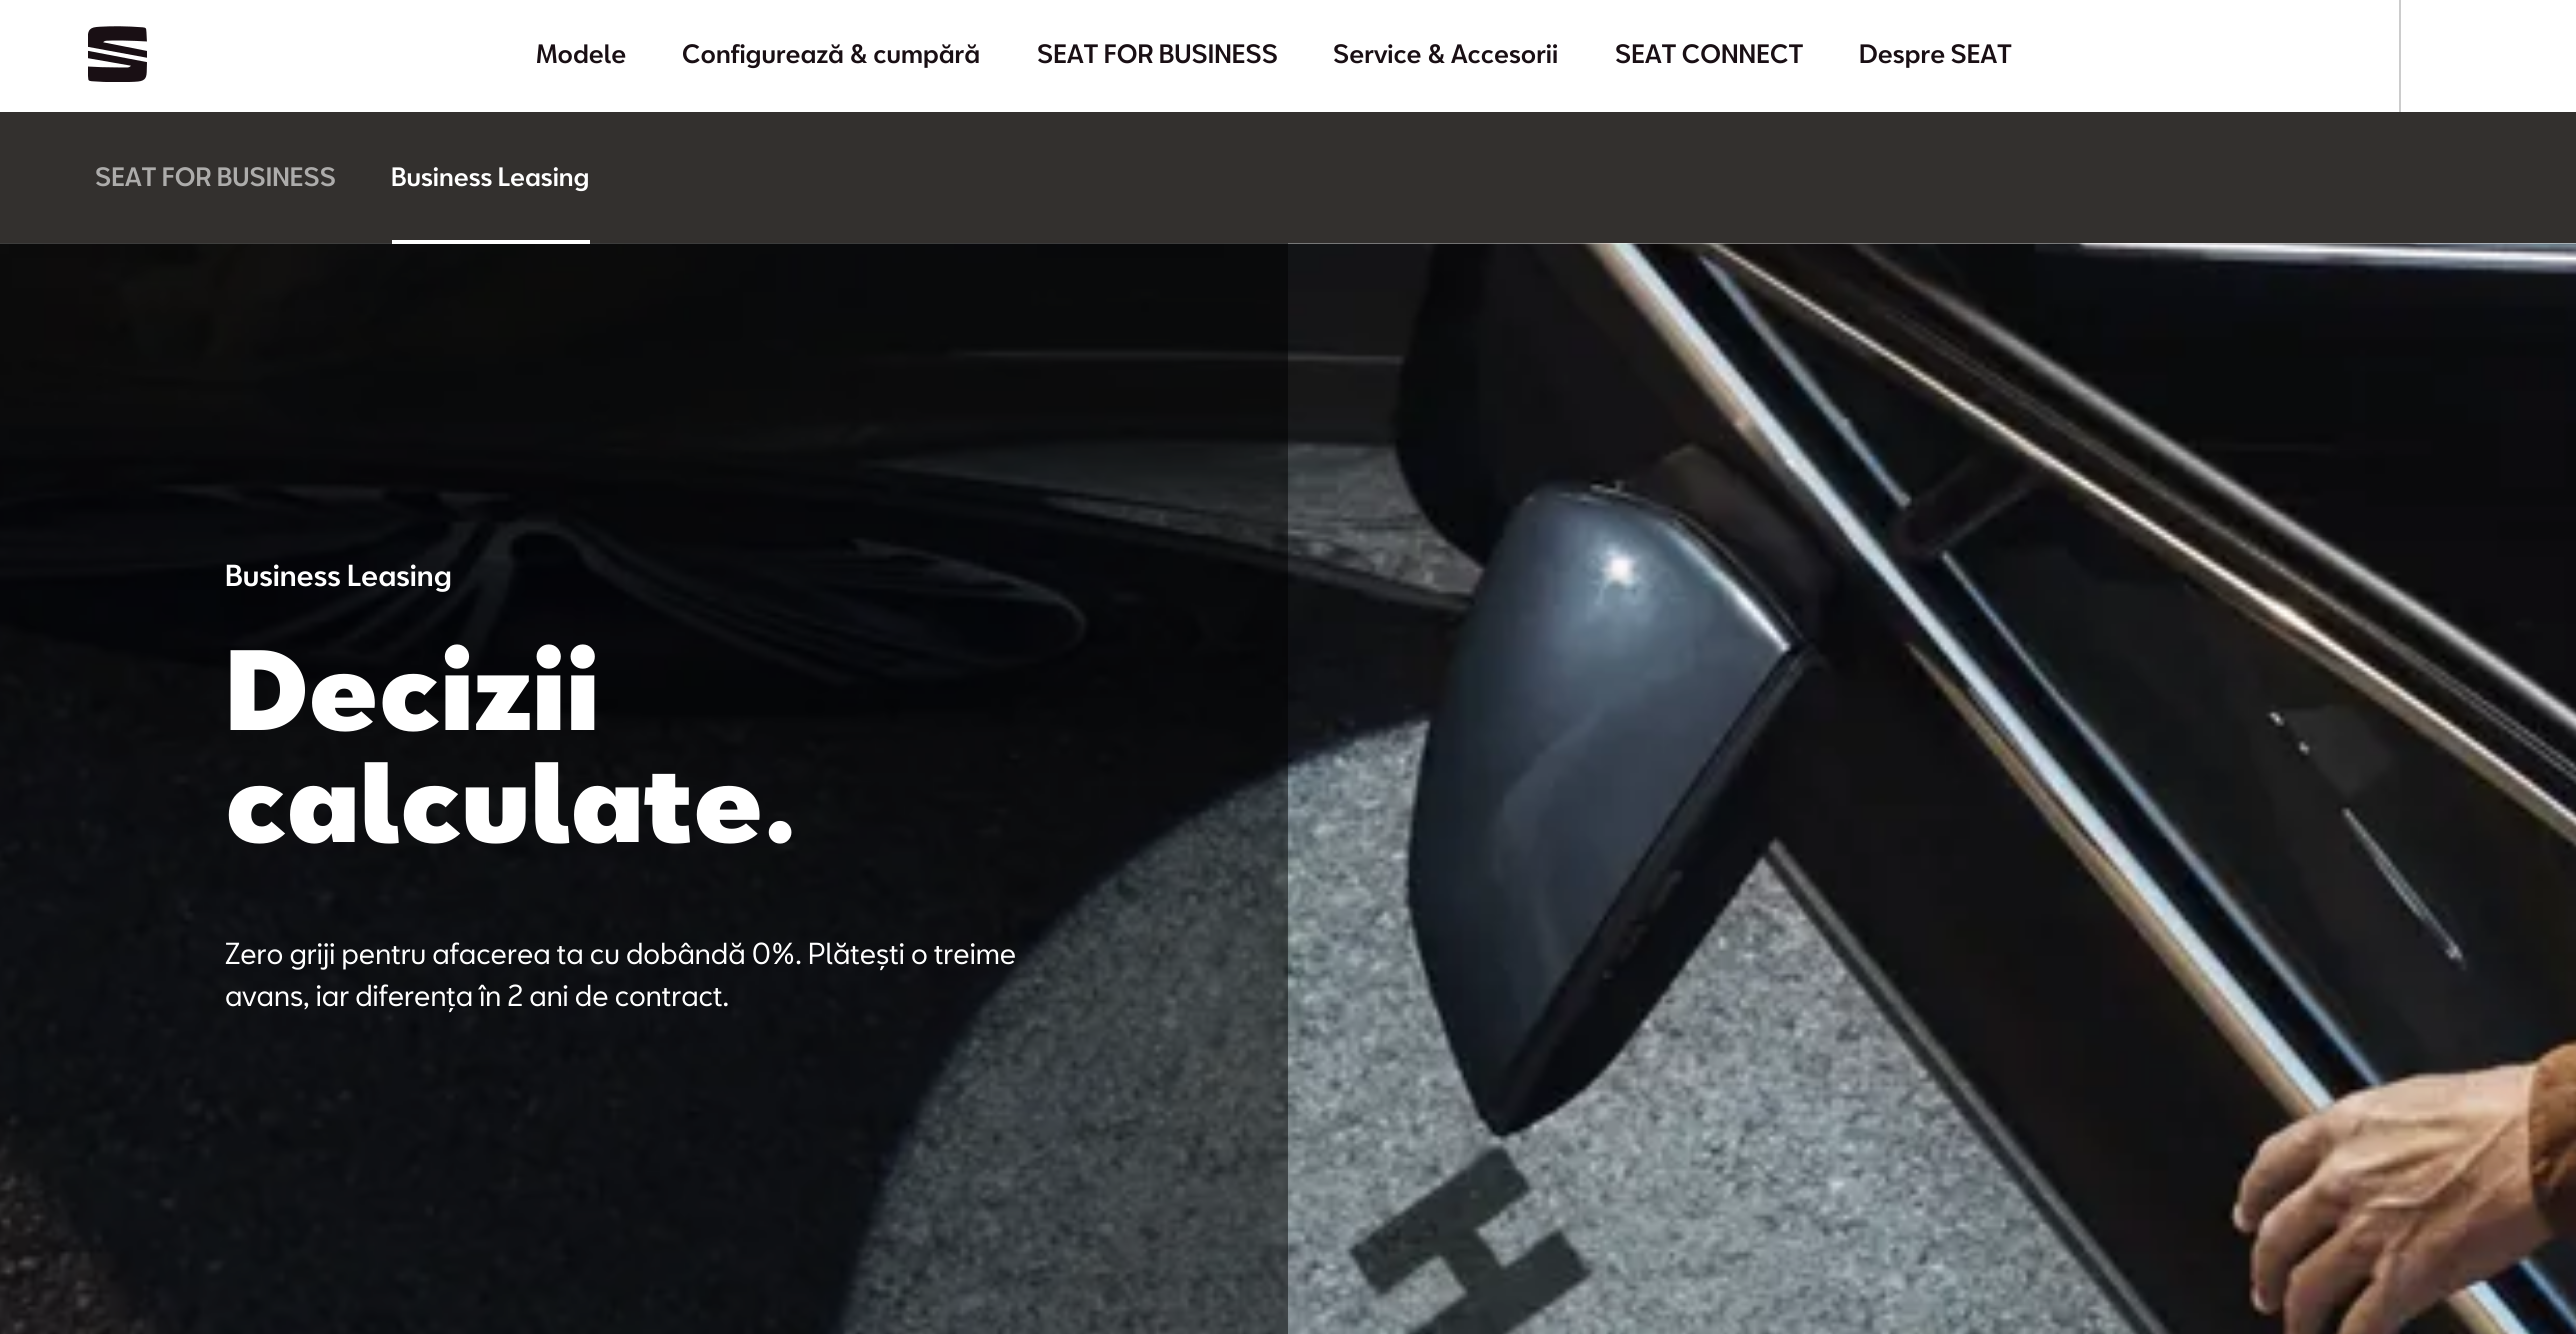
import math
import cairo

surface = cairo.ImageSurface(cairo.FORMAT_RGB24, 2576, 1334)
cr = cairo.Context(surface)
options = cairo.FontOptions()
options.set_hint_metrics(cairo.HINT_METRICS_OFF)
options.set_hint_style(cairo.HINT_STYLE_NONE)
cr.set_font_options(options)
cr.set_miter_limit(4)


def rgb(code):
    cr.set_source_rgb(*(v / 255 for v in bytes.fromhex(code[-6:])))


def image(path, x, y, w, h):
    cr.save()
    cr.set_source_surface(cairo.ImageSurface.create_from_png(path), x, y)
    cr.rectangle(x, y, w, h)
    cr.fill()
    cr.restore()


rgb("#fafaf9")
cr.paint()
rgb("#ffffff")
cr.rectangle(0, 0, 2576, 112)
cr.fill()
image("img/1.png", 88, 26, 59, 56)
rgb("#cccccc")
cr.rectangle(2399, 0, 2, 112)
cr.fill()
rgb("#33302e")
cr.rectangle(0, 112, 2576, 131)
cr.fill()
image("img/2.png", 0, 243, 2576, 1091)
cr.set_source_rgba(0, 0, 0, 0.5)
cr.rectangle(0, 243, 1288, 1091)
cr.fill()
rgb("#ffffff")
cr.rectangle(392, 240, 198, 4)
cr.fill()
cr.select_font_face("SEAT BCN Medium")
cr.set_font_size(24.5)
rgb("#190f14")
for x, y, s in [
    (536, 63, "Modele"),
    (682, 63, "Configurează & cumpără"),
    (1037, 63, "SEAT FOR BUSINESS"),
    (1333, 63, "Service & Accesorii"),
    (1615, 63, "SEAT CONNECT"),
    (1859, 63, "Despre SEAT"),
]:
    cr.move_to(x, y)
    cr.show_text(s)
rgb("#adacab")
cr.move_to(95, 186)
cr.show_text("SEAT FOR BUSINESS")
rgb("#ffffff")
cr.move_to(391, 186)
cr.show_text("Business Leasing")
cr.set_font_size(28)
cr.move_to(225, 586)
cr.show_text("Business Leasing")
cr.select_font_face("SEAT BCN Black")
cr.set_font_size(105)
cr.move_to(225, 730)
cr.show_text("Decizii")
cr.move_to(225, 842)
cr.show_text("calculate.")
cr.select_font_face("SEAT BCN")
cr.set_font_size(28)
cr.move_to(225, 964)
cr.show_text("Zero griji pentru afacerea ta cu dobândă 0%. Plătești o treime")
cr.move_to(225, 1006)
cr.show_text("avans, iar diferența în 2 ani de contract.")
surface.write_to_png("page.png")
